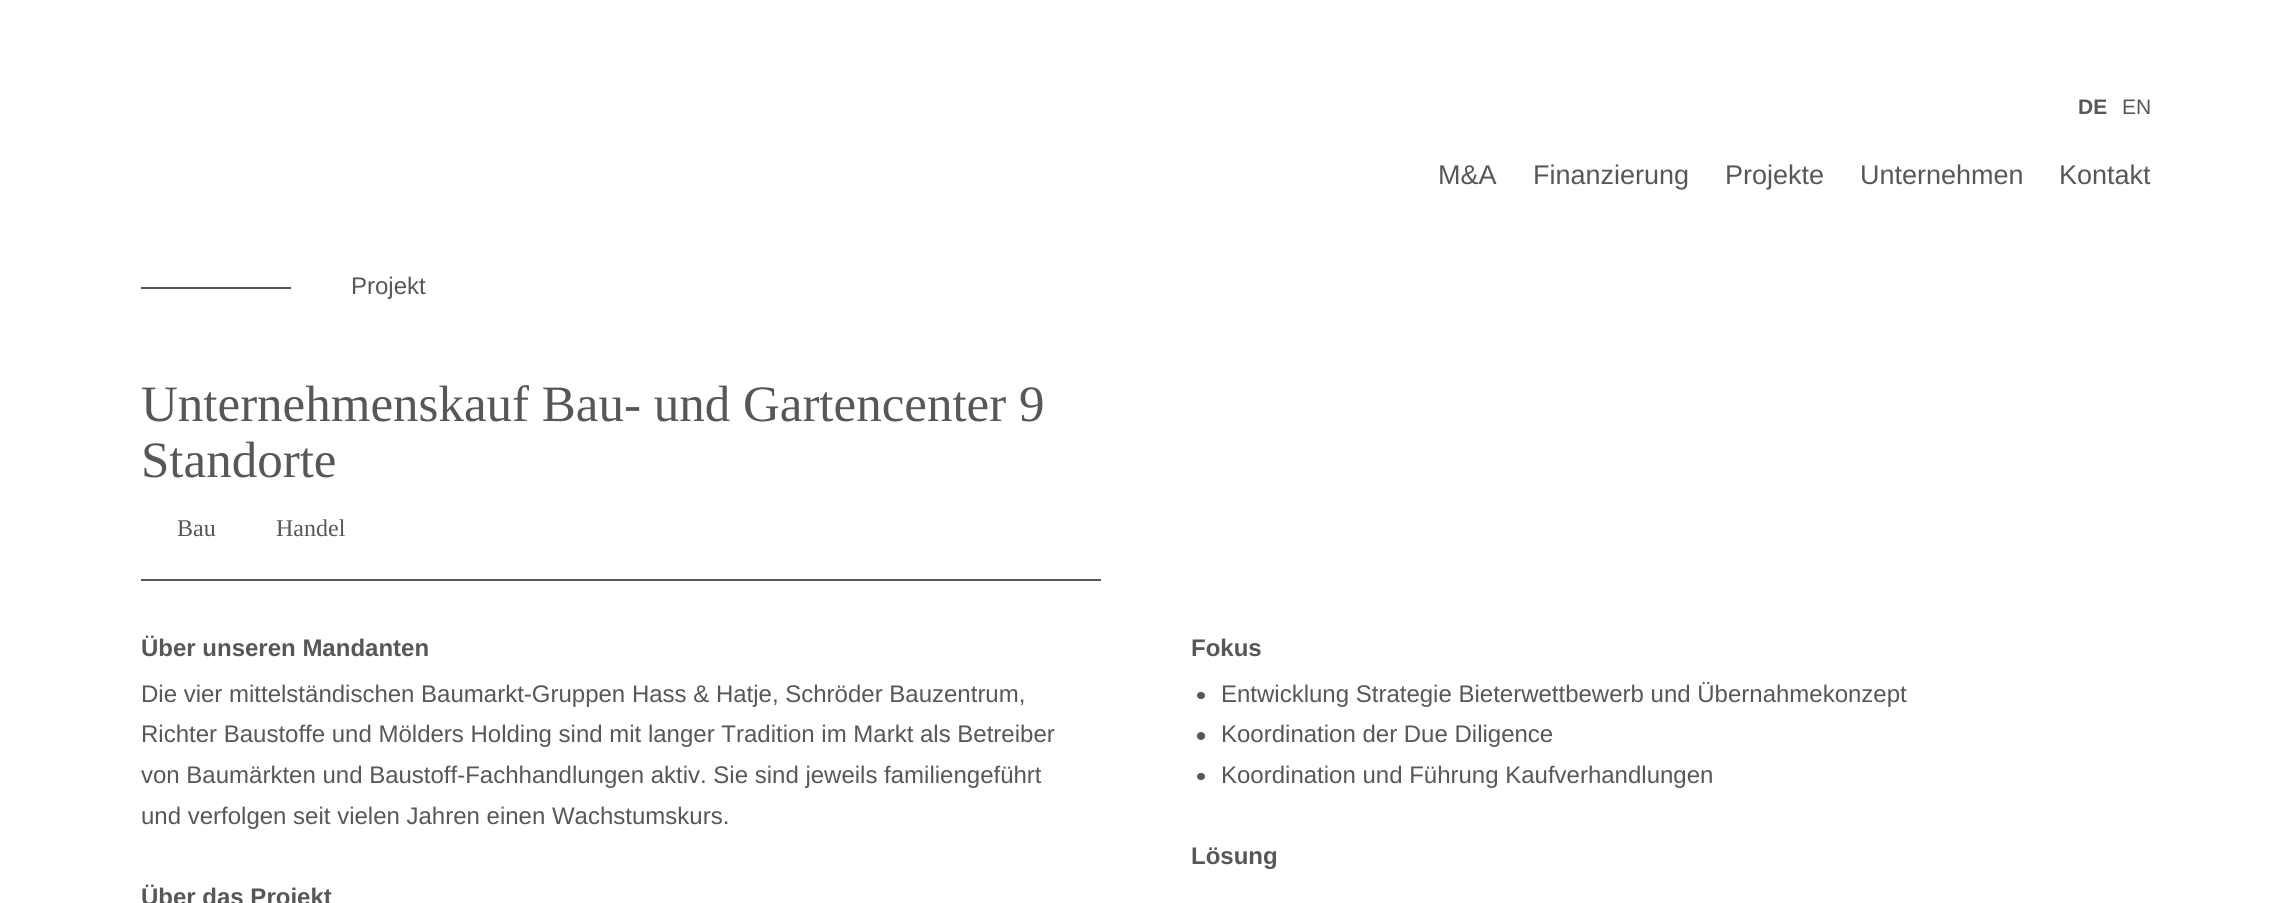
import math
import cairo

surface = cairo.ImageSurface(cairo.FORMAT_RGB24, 2292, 903)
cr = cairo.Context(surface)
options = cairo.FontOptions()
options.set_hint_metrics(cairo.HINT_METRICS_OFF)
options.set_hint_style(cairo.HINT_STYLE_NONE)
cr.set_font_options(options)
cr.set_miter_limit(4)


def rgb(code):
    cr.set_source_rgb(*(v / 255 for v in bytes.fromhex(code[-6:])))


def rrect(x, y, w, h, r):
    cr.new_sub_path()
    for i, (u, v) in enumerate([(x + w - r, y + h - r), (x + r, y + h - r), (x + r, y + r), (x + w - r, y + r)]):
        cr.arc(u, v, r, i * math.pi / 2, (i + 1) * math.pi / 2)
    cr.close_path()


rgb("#ffffff")
cr.paint()
rgb("#575756")
cr.rectangle(141, 287, 150, 2)
cr.fill()
cr.rectangle(141, 579, 960, 2)
cr.fill()
rrect(1197, 692, 8, 7, 3.5)
cr.fill()
cr.arc(1201, 736, 4, 0, 2 * math.pi)
cr.fill()
rrect(1197, 773, 8, 7, 3.5)
cr.fill()
cr.select_font_face("Liberation Sans", cairo.FONT_SLANT_NORMAL, cairo.FONT_WEIGHT_BOLD)
cr.set_font_size(21)
cr.move_to(2078, 114)
cr.show_text("DE")
cr.select_font_face("Liberation Sans")
cr.move_to(2122, 114)
cr.show_text("EN")
cr.set_font_size(27)
for x, y, s in [
    (1438, 184, "M&A"),
    (1533, 184, "Finanzierung"),
    (1725, 184, "Projekte"),
    (1860, 184, "Unternehmen"),
    (2059, 184, "Kontakt"),
]:
    cr.move_to(x, y)
    cr.show_text(s)
cr.set_font_size(24)
cr.move_to(351, 294)
cr.show_text("Projekt")
cr.select_font_face("Liberation Serif")
cr.set_font_size(51)
cr.move_to(141, 421)
cr.show_text("Unternehmenskauf Bau- und Gartencenter 9")
cr.move_to(141, 477)
cr.show_text("Standorte")
cr.set_font_size(24)
cr.move_to(177, 536)
cr.show_text("Bau")
cr.move_to(276, 536)
cr.show_text("Handel")
cr.select_font_face("Liberation Sans", cairo.FONT_SLANT_NORMAL, cairo.FONT_WEIGHT_BOLD)
cr.move_to(141, 656)
cr.show_text("Über unseren Mandanten")
cr.select_font_face("Liberation Sans")
for x, y, s in [
    (141, 702, "Die vier mittelständischen Baumarkt-Gruppen Hass & Hatje, Schröder Bauzentrum,"),
    (141, 742, "Richter Baustoffe und Mölders Holding sind mit langer Tradition im Markt als Betreiber"),
    (141, 783, "von Baumärkten und Baustoff-Fachhandlungen aktiv. Sie sind jeweils familiengeführt"),
    (141, 824, "und verfolgen seit vielen Jahren einen Wachstumskurs."),
]:
    cr.move_to(x, y)
    cr.show_text(s)
cr.select_font_face("Liberation Sans", cairo.FONT_SLANT_NORMAL, cairo.FONT_WEIGHT_BOLD)
cr.move_to(141, 905)
cr.show_text("Über das Projekt")
cr.move_to(1191, 656)
cr.show_text("Fokus")
cr.select_font_face("Liberation Sans")
for x, y, s in [
    (1221, 702, "Entwicklung Strategie Bieterwettbewerb und Übernahmekonzept"),
    (1221, 742, "Koordination der Due Diligence"),
    (1221, 783, "Koordination und Führung Kaufverhandlungen"),
]:
    cr.move_to(x, y)
    cr.show_text(s)
cr.select_font_face("Liberation Sans", cairo.FONT_SLANT_NORMAL, cairo.FONT_WEIGHT_BOLD)
cr.move_to(1191, 864)
cr.show_text("Lösung")
surface.write_to_png("page.png")
